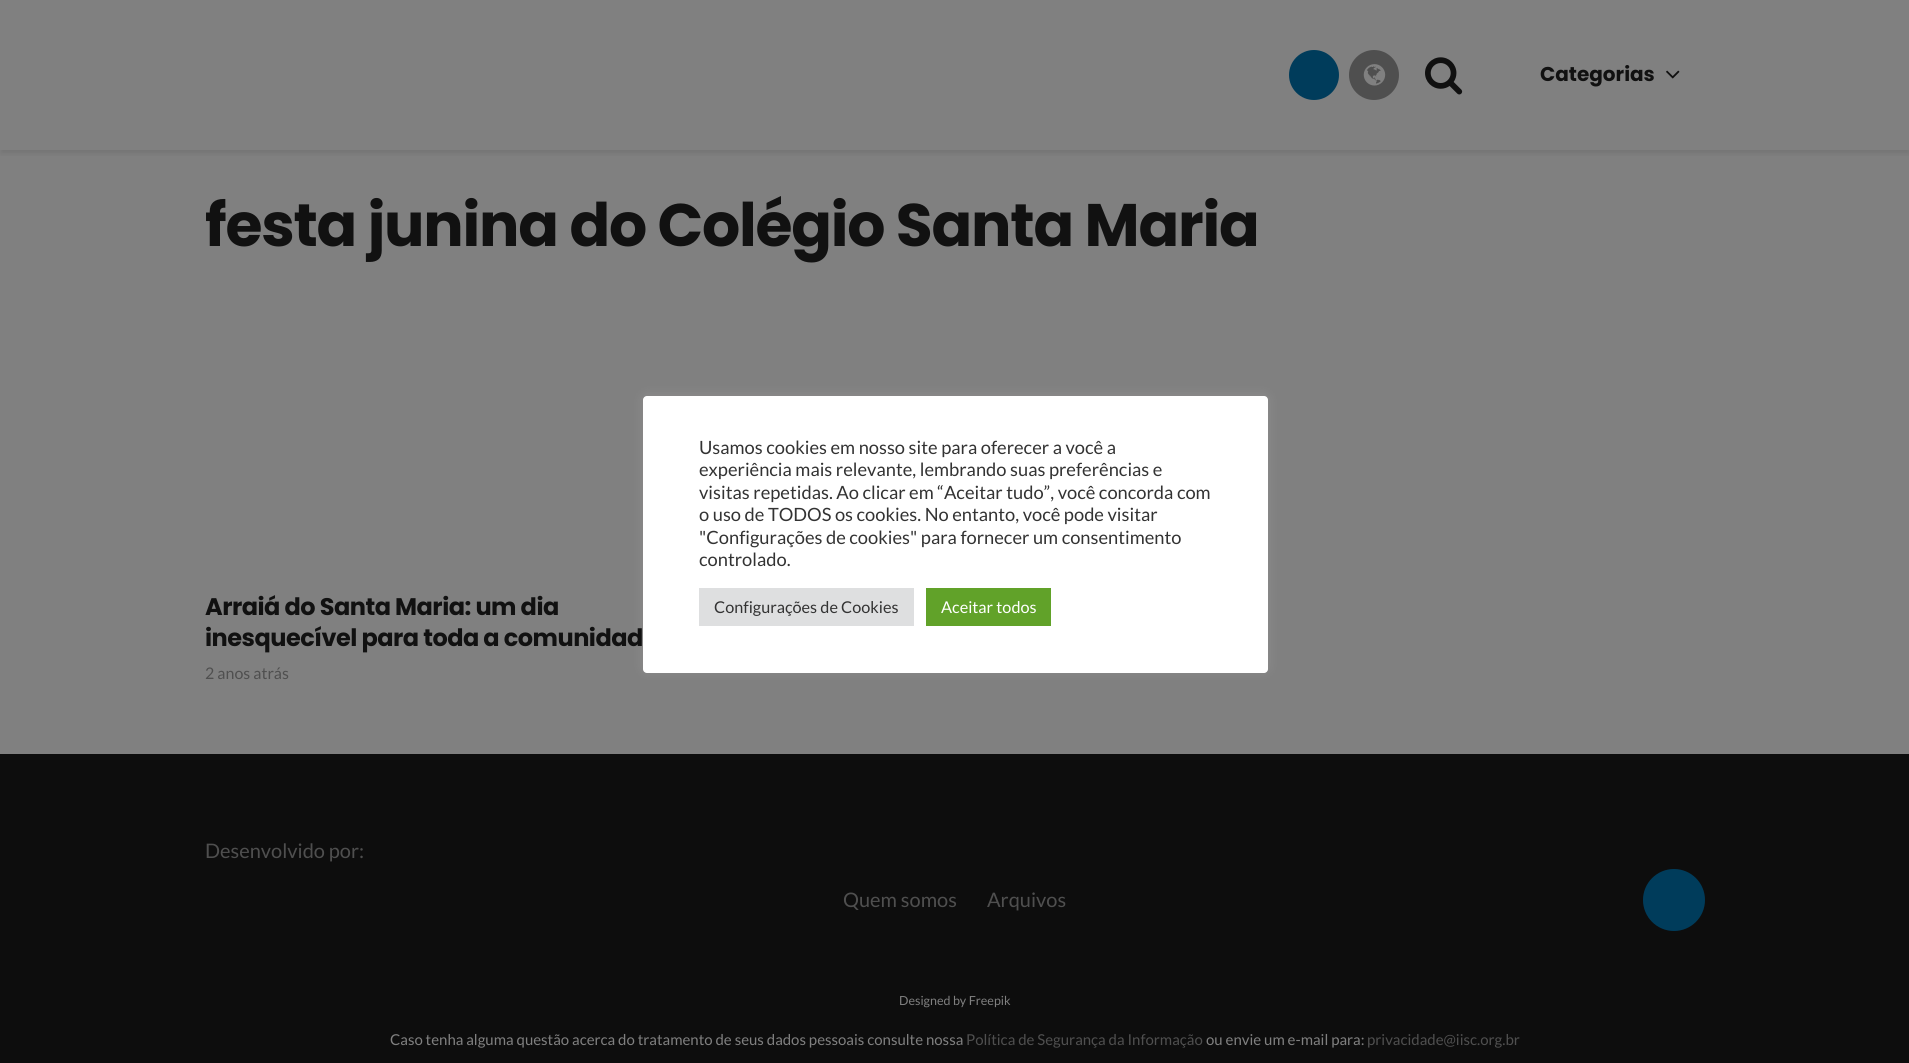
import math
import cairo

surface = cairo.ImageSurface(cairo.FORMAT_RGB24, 1909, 1063)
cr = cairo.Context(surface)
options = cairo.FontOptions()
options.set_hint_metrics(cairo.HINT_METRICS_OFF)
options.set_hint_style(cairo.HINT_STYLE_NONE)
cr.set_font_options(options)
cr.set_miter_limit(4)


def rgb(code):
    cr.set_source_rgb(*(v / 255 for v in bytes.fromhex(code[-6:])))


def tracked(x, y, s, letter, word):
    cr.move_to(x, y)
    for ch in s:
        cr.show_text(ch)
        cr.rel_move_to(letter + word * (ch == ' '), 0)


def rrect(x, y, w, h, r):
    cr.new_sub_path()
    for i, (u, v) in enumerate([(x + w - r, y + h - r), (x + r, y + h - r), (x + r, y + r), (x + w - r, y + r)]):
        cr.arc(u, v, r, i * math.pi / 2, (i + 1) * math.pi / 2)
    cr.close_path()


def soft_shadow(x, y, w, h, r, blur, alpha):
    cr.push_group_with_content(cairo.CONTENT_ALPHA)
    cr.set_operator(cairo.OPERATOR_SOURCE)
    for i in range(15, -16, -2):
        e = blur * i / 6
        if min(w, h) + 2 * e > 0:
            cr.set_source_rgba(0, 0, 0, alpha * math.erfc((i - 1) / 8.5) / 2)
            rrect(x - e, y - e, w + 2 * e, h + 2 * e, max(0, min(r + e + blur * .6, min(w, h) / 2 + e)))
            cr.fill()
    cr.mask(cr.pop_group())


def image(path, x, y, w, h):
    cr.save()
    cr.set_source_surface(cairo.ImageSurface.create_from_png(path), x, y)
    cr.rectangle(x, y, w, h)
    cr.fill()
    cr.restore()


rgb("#0d0d0d")
cr.paint()
rgb("#808080")
cr.rectangle(0, 0, 1909, 754)
cr.fill()
cr.save()
cr.rectangle(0, 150, 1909, 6)
cr.clip()
rgb("#000000")
soft_shadow(1, 5, 1908, 148, 0, 3, 0.1)
cr.restore()
rgb("#003c5b")
cr.arc(1314, 75, 25, 0, 2 * math.pi)
cr.fill()
rgb("#4f4f4f")
cr.arc(1374, 75, 25, 0, 2 * math.pi)
cr.fill()
image("img/1.png", 1363, 64, 23, 22)
image("img/2.png", 1425, 57, 38, 38)
image("img/3.png", 1666, 70, 14, 9)
rgb("#acabab")
soft_shadow(643, 395, 625, 276, 4, 6, 0.3)
rgb("#ffffff")
rrect(643, 396, 625, 277, 4)
cr.fill()
rgb("#dedfe0")
cr.rectangle(699, 588, 215, 38)
cr.fill()
rgb("#61a229")
cr.rectangle(926, 588, 125, 38)
cr.fill()
rgb("#003c5b")
cr.arc(1674, 900, 31, 0, 2 * math.pi)
cr.fill()
cr.select_font_face("Poppins", cairo.FONT_SLANT_NORMAL, cairo.FONT_WEIGHT_BOLD)
cr.set_font_size(20)
rgb("#111111")
cr.move_to(1540, 81)
cr.show_text("Categorias")
cr.set_font_size(60)
tracked(205, 246, "festa junina do Colégio Santa Maria", -1.2, 0)
cr.set_font_size(24)
tracked(205, 615, "Arraiá do Santa Maria: um dia", -0.5, 0)
tracked(205, 646, "inesquecível para toda a comunidad", -0.5, 0)
cr.select_font_face("Lato")
cr.set_font_size(16)
rgb("#4f4f4f")
cr.move_to(205, 679)
cr.show_text("2 anos atrás")
cr.set_font_size(18.3)
rgb("#333333")
for x, y, s in [
    (699, 454, "Usamos cookies em nosso site para oferecer a você a"),
    (699, 476, "experiência mais relevante, lembrando suas preferências e"),
    (699, 499, "visitas repetidas. Ao clicar em “Aceitar tudo”, você concorda com"),
    (699, 521, "o uso de TODOS os cookies. No entanto, você pode visitar"),
    (699, 544, "\"Configurações de cookies\" para fornecer um consentimento"),
    (699, 566, "controlado."),
]:
    cr.move_to(x, y)
    cr.show_text(s)
cr.set_font_size(16.25)
cr.move_to(714, 613)
cr.show_text("Configurações de Cookies")
rgb("#ffffff")
cr.move_to(941, 613)
cr.show_text("Aceitar todos")
cr.set_font_size(20)
rgb("#4f4f4f")
for x, y, s in [
    (205, 858, "Desenvolvido por:"),
    (843, 907, "Quem somos"),
    (987, 907, "Arquivos"),
]:
    cr.move_to(x, y)
    cr.show_text(s)
cr.set_font_size(12.5)
rgb("#808080")
cr.move_to(899, 1005)
cr.show_text("Designed by Freepik")
cr.set_font_size(15)
cr.move_to(390, 1045)
cr.show_text("Caso tenha alguma questão acerca do tratamento de seus dados pessoais consulte nossa")
rgb("#4f4f4f")
cr.move_to(966, 1045)
cr.show_text("Política de Segurança da Informação")
rgb("#808080")
cr.move_to(1206, 1045)
cr.show_text("ou envie um e-mail para:")
rgb("#4f4f4f")
cr.move_to(1367, 1045)
cr.show_text("privacidade@iisc.org.br")
surface.write_to_png("page.png")
